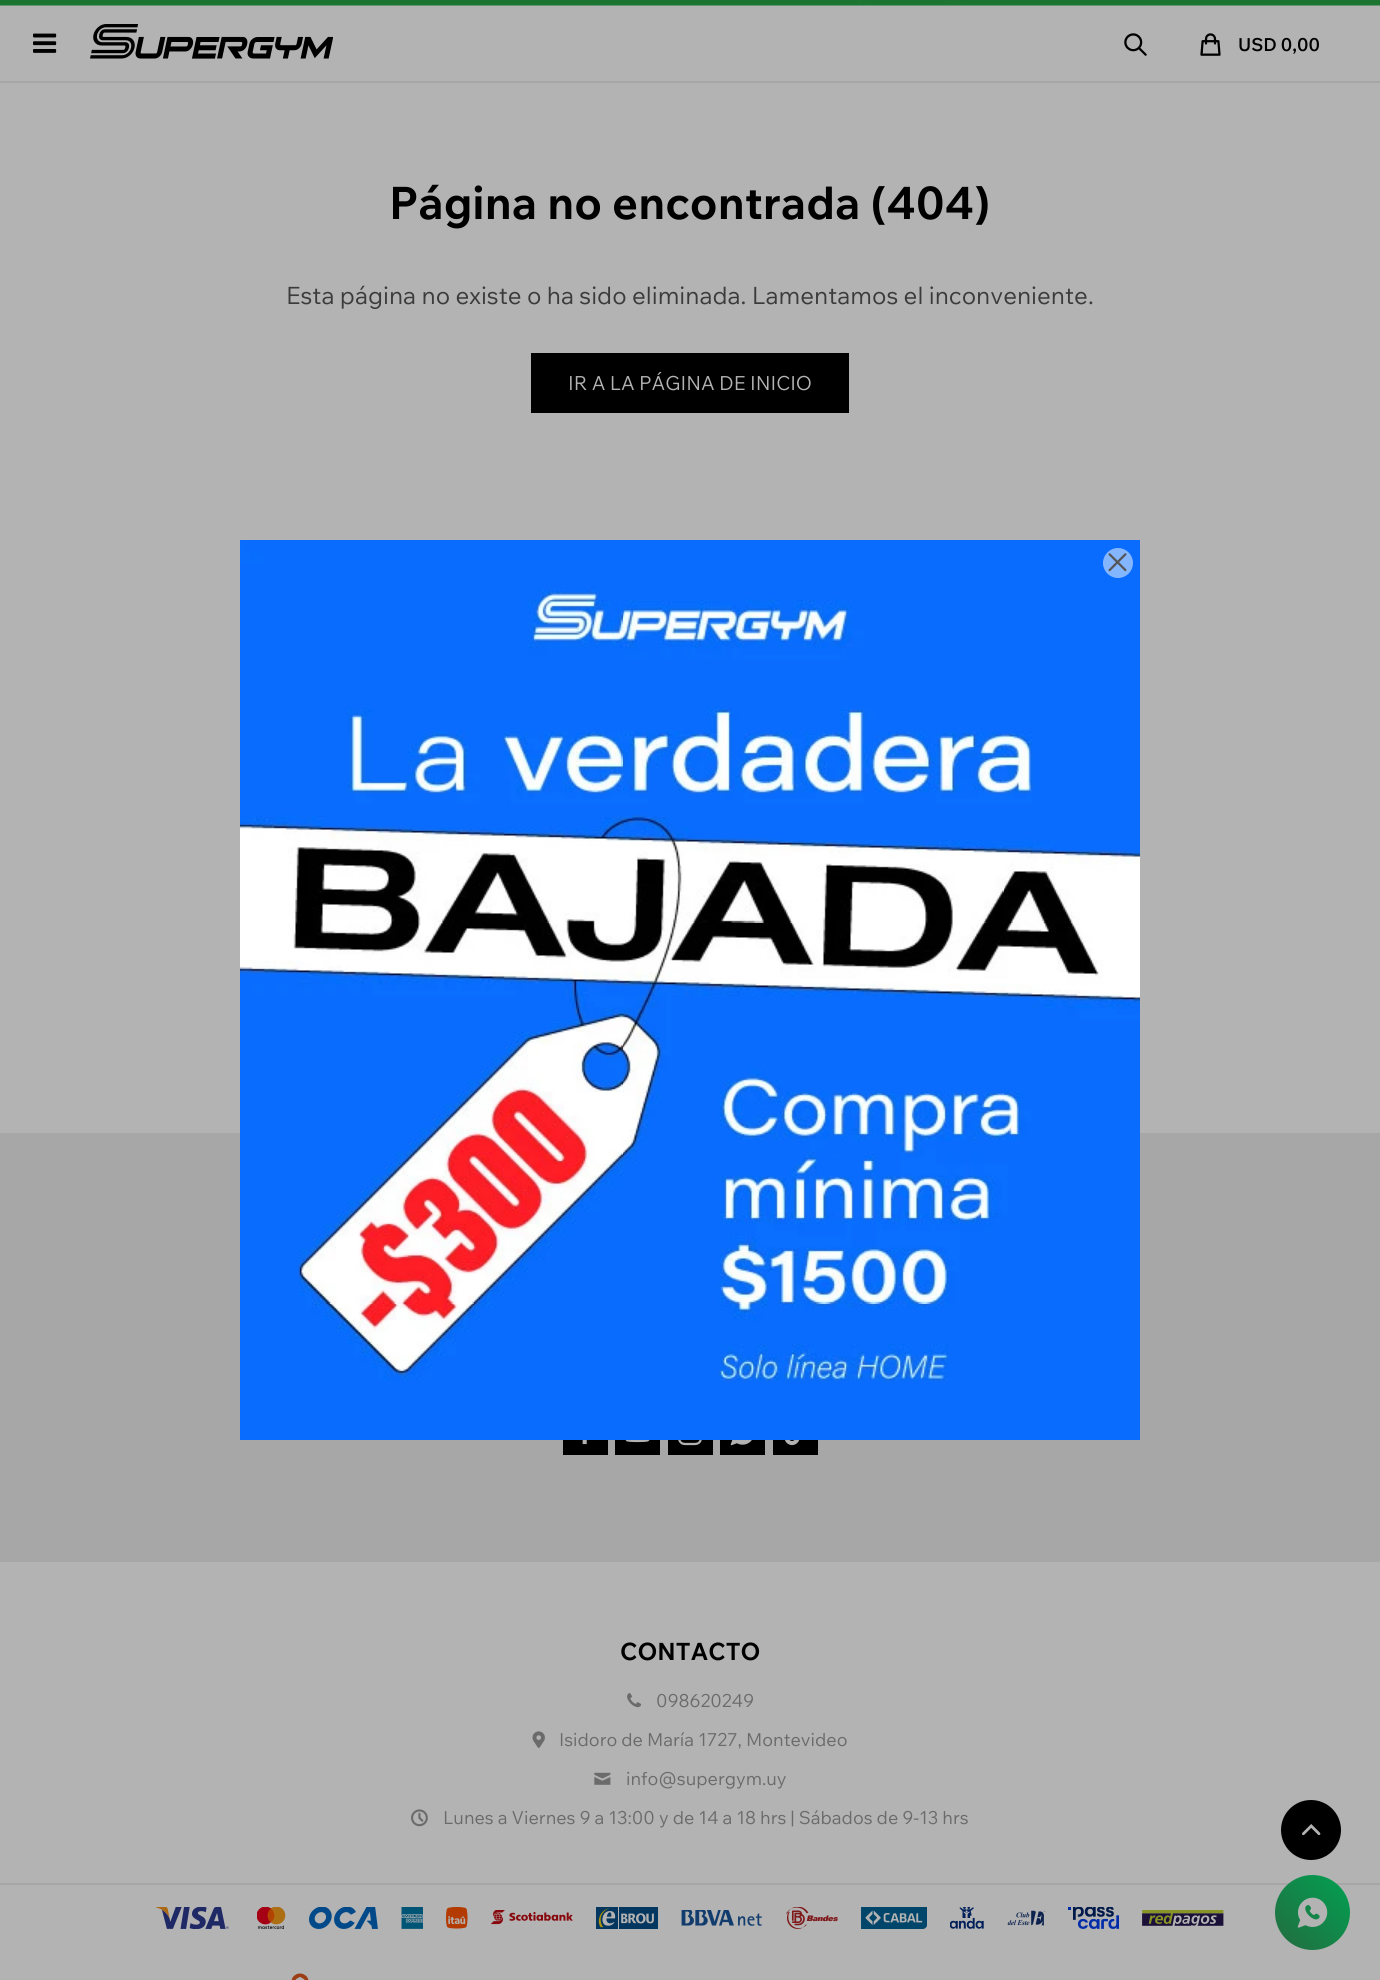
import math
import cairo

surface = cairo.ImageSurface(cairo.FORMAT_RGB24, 1380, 1980)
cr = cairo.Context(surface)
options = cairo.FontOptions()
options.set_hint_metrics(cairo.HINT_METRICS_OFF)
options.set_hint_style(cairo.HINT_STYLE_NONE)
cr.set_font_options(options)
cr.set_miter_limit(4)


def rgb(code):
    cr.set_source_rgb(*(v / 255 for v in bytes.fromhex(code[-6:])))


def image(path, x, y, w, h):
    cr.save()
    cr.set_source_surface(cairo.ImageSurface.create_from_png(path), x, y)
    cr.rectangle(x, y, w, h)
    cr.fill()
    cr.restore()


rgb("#b3b3b3")
cr.paint()
image("img/1.png", 0, 0, 1380, 6)
rgb("#a6a6a6")
cr.rectangle(0, 81, 1380, 2)
cr.fill()
image("img/2.png", 33, 33, 24, 20)
image("img/3.png", 90, 24, 243, 35)
image("img/4.png", 1124, 33, 23, 23)
image("img/5.png", 1200, 33, 21, 23)
for x, y, w, h, color in [
    (531, 353, 318, 60, "#000000"),
    (0, 1133, 1380, 429, "#a7a7a7"),
    (563, 1440, 45, 15, "#000000"),
]:
    rgb(color)
    cr.rectangle(x, y, w, h)
    cr.fill()
image("img/6.png", 582, 1440, 5, 5)
cr.rectangle(615, 1440, 45, 15)
cr.fill()
image("img/7.png", 625, 1440, 25, 3)
cr.rectangle(668, 1440, 45, 15)
cr.fill()
image("img/8.png", 678, 1440, 24, 6)
cr.rectangle(720, 1440, 45, 15)
cr.fill()
image("img/9.png", 730, 1440, 22, 6)
cr.rectangle(773, 1440, 45, 15)
cr.fill()
image("img/10.png", 785, 1440, 15, 6)
image("img/11.png", 627, 1693, 15, 15)
image("img/12.png", 532, 1731, 13, 17)
image("img/13.png", 594, 1772, 17, 13)
image("img/14.png", 411, 1809, 17, 18)
rgb("#a6a6a6")
cr.rectangle(0, 1883, 1380, 2)
cr.fill()
image("img/15.png", 156, 1907, 73, 22)
image("img/16.png", 257, 1907, 29, 22)
image("img/17.png", 309, 1907, 69, 22)
image("img/18.png", 401, 1907, 22, 22)
image("img/19.png", 446, 1907, 22, 22)
image("img/20.png", 491, 1910, 82, 15)
image("img/21.png", 596, 1907, 62, 22)
image("img/22.png", 681, 1910, 81, 16)
image("img/23.png", 786, 1907, 52, 22)
image("img/24.png", 861, 1907, 66, 22)
image("img/25.png", 950, 1907, 34, 22)
image("img/26.png", 1007, 1910, 39, 16)
image("img/27.png", 1068, 1907, 51, 22)
image("img/28.png", 1142, 1910, 82, 16)
image("img/29.png", 291, 1973, 18, 7)
image("img/30.png", 240, 540, 900, 900)
rgb("#84b6ff")
cr.arc(1118, 563, 15, 0, 2 * math.pi)
cr.fill()
image("img/31.png", 1108, 553, 19, 19)
rgb("#000000")
cr.arc(1311, 1830, 30, 0, 2 * math.pi)
cr.fill()
image("img/32.png", 1302, 1824, 19, 12)
gradient = cairo.LinearGradient(1275, 1950, 1350, 1875)
gradient.add_color_stop_rgba(0, 0.141, 0.42, 0.247, 1)
gradient.add_color_stop_rgba(1, 0.004, 0.631, 0.322, 1)
cr.set_source(gradient)
cr.arc(1312.5, 1912.5, 37.5, 0, 2 * math.pi)
cr.fill()
image("img/33.png", 1297, 1897, 31, 31)
cr.select_font_face("Wix Madefor Text SemiBold")
cr.set_font_size(18)
rgb("#000000")
cr.move_to(1238, 51)
cr.show_text("USD 0,00")
cr.select_font_face("Wix Madefor Text", cairo.FONT_SLANT_NORMAL, cairo.FONT_WEIGHT_BOLD)
cr.set_font_size(45)
cr.move_to(389, 219)
cr.show_text("Página no encontrada (404)")
cr.select_font_face("Wix Madefor Text")
cr.set_font_size(24)
rgb("#3b3b3b")
cr.move_to(286, 304)
cr.show_text("Esta página no existe o ha sido eliminada. Lamentamos el inconveniente.")
cr.set_font_size(19.5)
rgb("#b3b3b3")
cr.move_to(568, 390)
cr.show_text("IR A LA PÁGINA DE INICIO")
cr.select_font_face("Wix Madefor Text", cairo.FONT_SLANT_NORMAL, cairo.FONT_WEIGHT_BOLD)
cr.set_font_size(24)
rgb("#000000")
cr.move_to(620, 1660)
cr.show_text("CONTACTO")
cr.select_font_face("Wix Madefor Text")
cr.set_font_size(18)
rgb("#6b6b6b")
for x, y, s in [
    (656, 1707, "098620249"),
    (559, 1746, "Isidoro de María 1727, Montevideo"),
    (626, 1785, "info@supergym.uy"),
    (443, 1824, "Lunes a Viernes 9 a 13:00 y de 14 a 18 hrs | Sábados de 9-13 hrs"),
]:
    cr.move_to(x, y)
    cr.show_text(s)
surface.write_to_png("page.png")
